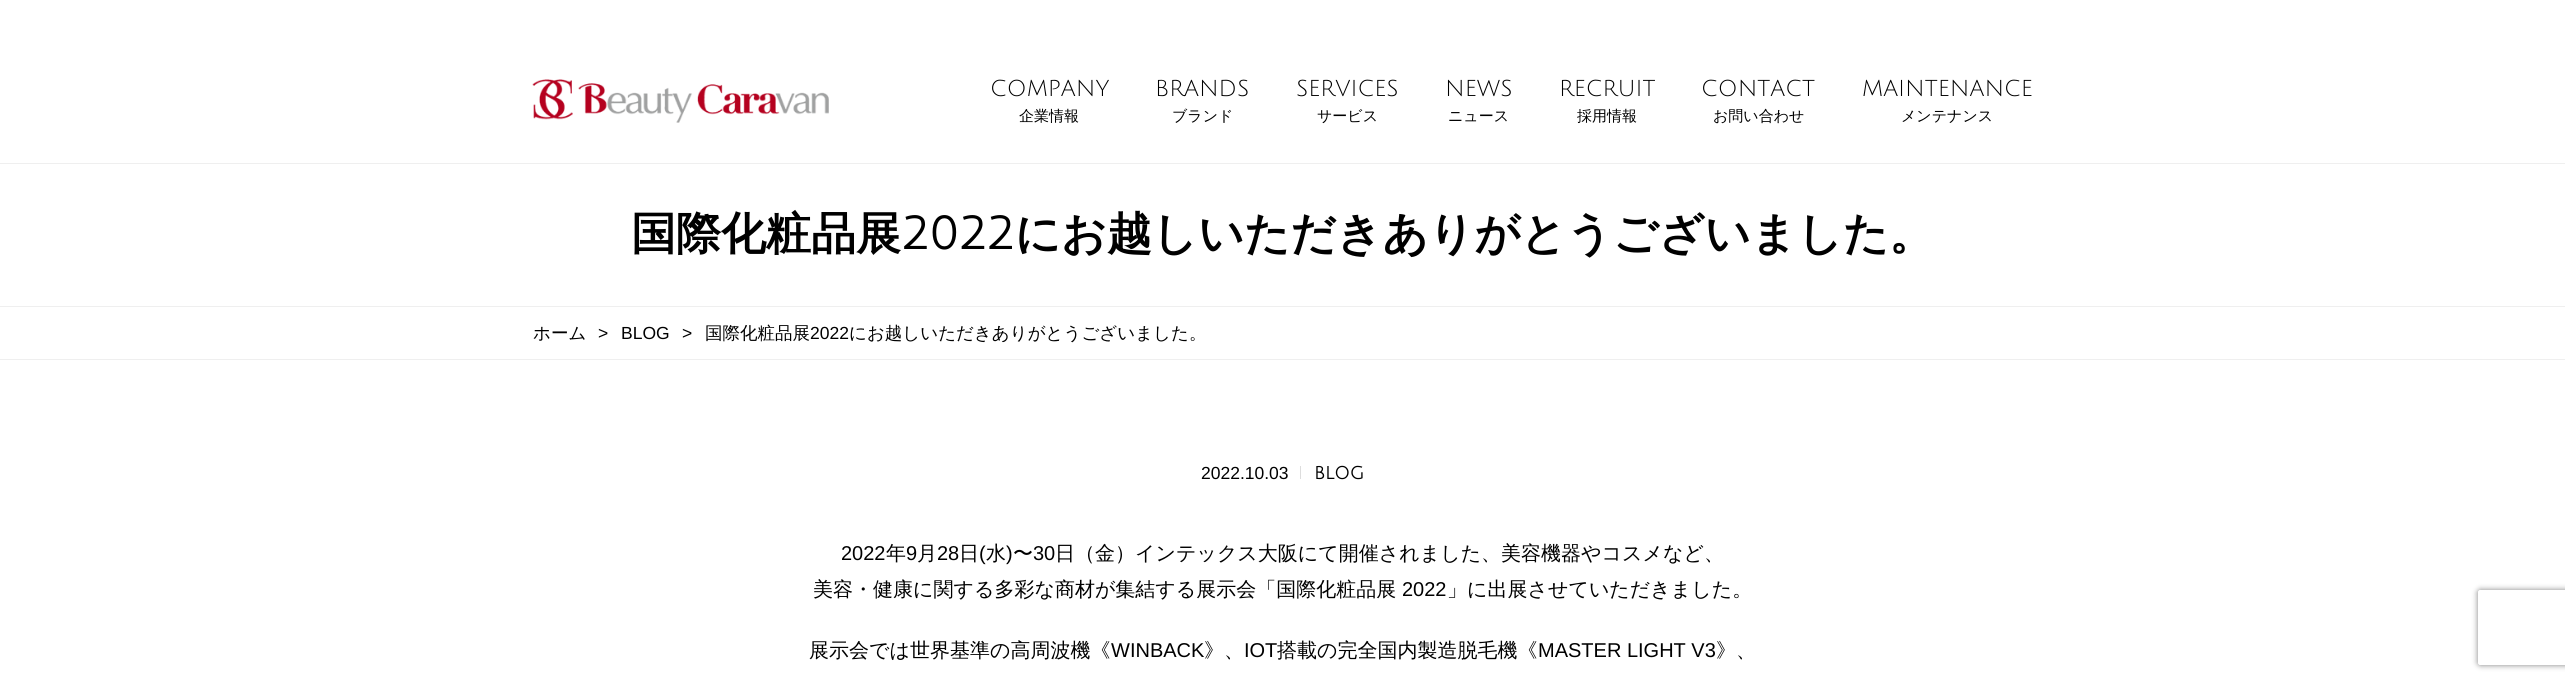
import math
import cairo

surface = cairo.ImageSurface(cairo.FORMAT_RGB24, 2565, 682)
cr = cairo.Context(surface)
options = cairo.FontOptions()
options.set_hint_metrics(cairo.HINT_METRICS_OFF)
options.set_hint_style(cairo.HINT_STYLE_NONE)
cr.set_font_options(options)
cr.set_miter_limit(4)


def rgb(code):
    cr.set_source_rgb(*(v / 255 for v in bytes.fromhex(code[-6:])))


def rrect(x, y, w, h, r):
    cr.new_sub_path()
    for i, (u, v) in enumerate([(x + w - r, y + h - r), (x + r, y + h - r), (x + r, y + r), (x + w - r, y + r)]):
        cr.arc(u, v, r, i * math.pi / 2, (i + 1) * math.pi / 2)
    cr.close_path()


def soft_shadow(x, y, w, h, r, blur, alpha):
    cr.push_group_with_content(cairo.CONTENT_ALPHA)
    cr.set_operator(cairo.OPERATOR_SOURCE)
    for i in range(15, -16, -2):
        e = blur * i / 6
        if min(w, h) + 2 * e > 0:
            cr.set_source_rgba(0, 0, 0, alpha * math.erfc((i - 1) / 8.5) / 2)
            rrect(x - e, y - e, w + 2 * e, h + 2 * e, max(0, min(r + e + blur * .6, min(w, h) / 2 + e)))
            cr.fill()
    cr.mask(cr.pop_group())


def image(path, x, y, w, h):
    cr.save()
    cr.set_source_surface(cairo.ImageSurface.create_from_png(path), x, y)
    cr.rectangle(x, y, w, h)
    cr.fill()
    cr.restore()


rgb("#ffffff")
cr.paint()
image("img/1.png", 532, 79, 297, 44)
for x, y, w, h, color in [
    (0, 163, 2565, 1, "#efefef"),
    (0, 306, 2565, 1, "#efefef"),
    (0, 359, 2565, 1, "#efefef"),
    (1300, 466, 1, 13, "#dddddd"),
]:
    rgb(color)
    cr.rectangle(x, y, w, h)
    cr.fill()
cr.save()
cr.set_fill_rule(cairo.FILL_RULE_EVEN_ODD)
cr.new_path()
cr.move_to(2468, 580)
cr.line_to(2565, 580)
cr.line_to(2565, 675)
cr.line_to(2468, 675)
cr.close_path()
cr.move_to(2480.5, 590)
cr.line_to(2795.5, 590)
cr.curve_to(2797, 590, 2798, 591, 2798, 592.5)
cr.line_to(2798, 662.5)
cr.curve_to(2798, 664, 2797, 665, 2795.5, 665)
cr.line_to(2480.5, 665)
cr.curve_to(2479, 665, 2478, 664, 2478, 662.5)
cr.line_to(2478, 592.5)
cr.curve_to(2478, 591, 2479, 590, 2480.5, 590)
cr.close_path()
cr.clip()
rgb("#808080")
soft_shadow(2478, 590, 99, 75, 2.5, 3, 1)
cr.restore()
cr.select_font_face("Julius Sans One")
cr.set_font_size(22.5)
rgb("#000000")
cr.move_to(990, 96)
cr.show_text("COMPANY")
cr.select_font_face("WenQuanYi Zen Hei Medium")
cr.set_font_size(15)
cr.move_to(1019, 121)
cr.show_text("企業情報")
cr.select_font_face("Julius Sans One")
cr.set_font_size(22.5)
cr.move_to(1155, 96)
cr.show_text("BRANDS")
cr.select_font_face("WenQuanYi Zen Hei Medium")
cr.set_font_size(15)
cr.move_to(1172, 121)
cr.show_text("ブランド")
cr.select_font_face("Julius Sans One")
cr.set_font_size(22.5)
cr.move_to(1296, 96)
cr.show_text("SERVICES")
cr.select_font_face("WenQuanYi Zen Hei Medium")
cr.set_font_size(15)
cr.move_to(1317, 121)
cr.show_text("サービス")
cr.select_font_face("Julius Sans One")
cr.set_font_size(22.5)
cr.move_to(1445, 96)
cr.show_text("NEWS")
cr.select_font_face("WenQuanYi Zen Hei Medium")
cr.set_font_size(15)
cr.move_to(1448, 121)
cr.show_text("ニュース")
cr.select_font_face("Julius Sans One")
cr.set_font_size(22.5)
cr.move_to(1559, 96)
cr.show_text("RECRUIT")
cr.select_font_face("WenQuanYi Zen Hei Medium")
cr.set_font_size(15)
cr.move_to(1577, 121)
cr.show_text("採用情報")
cr.select_font_face("Julius Sans One")
cr.set_font_size(22.5)
cr.move_to(1701, 96)
cr.show_text("CONTACT")
cr.select_font_face("WenQuanYi Zen Hei Medium")
cr.set_font_size(15)
cr.move_to(1713, 121)
cr.show_text("お問い合わせ")
cr.select_font_face("Julius Sans One")
cr.set_font_size(22.5)
cr.move_to(1862, 96)
cr.show_text("MAINTENANCE")
cr.select_font_face("WenQuanYi Zen Hei Medium")
cr.set_font_size(15)
cr.move_to(1901, 121)
cr.show_text("メンテナンス")
cr.select_font_face("WenQuanYi Zen Hei", cairo.FONT_SLANT_NORMAL, cairo.FONT_WEIGHT_BOLD)
cr.set_font_size(45)
cr.move_to(631, 249)
cr.show_text("国際化粧品展")
cr.select_font_face("Julius Sans One", cairo.FONT_SLANT_NORMAL, cairo.FONT_WEIGHT_BOLD)
cr.move_to(901, 249)
cr.show_text("2022")
cr.select_font_face("WenQuanYi Zen Hei", cairo.FONT_SLANT_NORMAL, cairo.FONT_WEIGHT_BOLD)
cr.move_to(1015, 249)
cr.show_text("にお越しいただきありがとうございました。")
cr.select_font_face("WenQuanYi Zen Hei Medium")
cr.set_font_size(17.5)
cr.move_to(533, 339)
cr.show_text("ホーム")
cr.select_font_face("Liberation Sans")
for x, y, s in [
    (598, 339, ">"),
    (621, 339, "BLOG"),
    (682, 339, ">"),
]:
    cr.move_to(x, y)
    cr.show_text(s)
cr.select_font_face("WenQuanYi Zen Hei Medium")
cr.move_to(705, 339)
cr.show_text("国際化粧品展")
cr.select_font_face("Liberation Sans")
cr.move_to(810, 339)
cr.show_text("2022")
cr.select_font_face("WenQuanYi Zen Hei Medium")
cr.move_to(849, 339)
cr.show_text("にお越しいただきありがとうございました。")
cr.select_font_face("Liberation Sans")
cr.move_to(1201, 479)
cr.show_text("2022.10.03")
cr.select_font_face("Julius Sans One", cairo.FONT_SLANT_NORMAL, cairo.FONT_WEIGHT_BOLD)
cr.move_to(1314, 479)
cr.show_text("BLOG")
cr.select_font_face("Liberation Sans")
cr.set_font_size(20)
cr.move_to(841, 560)
cr.show_text("2022")
cr.select_font_face("WenQuanYi Zen Hei Medium")
cr.move_to(886, 560)
cr.show_text("年")
cr.select_font_face("Liberation Sans")
cr.move_to(906, 560)
cr.show_text("9")
cr.select_font_face("WenQuanYi Zen Hei Medium")
cr.move_to(917, 560)
cr.show_text("月")
cr.select_font_face("Liberation Sans")
cr.move_to(937, 560)
cr.show_text("28")
cr.select_font_face("WenQuanYi Zen Hei Medium")
cr.move_to(959, 560)
cr.show_text("日")
cr.select_font_face("Liberation Sans")
cr.move_to(979, 560)
cr.show_text("(")
cr.select_font_face("WenQuanYi Zen Hei Medium")
cr.move_to(986, 560)
cr.show_text("水")
cr.select_font_face("Liberation Sans")
cr.move_to(1006, 560)
cr.show_text(")")
cr.select_font_face("WenQuanYi Zen Hei Medium")
cr.move_to(1013, 560)
cr.show_text("〜")
cr.select_font_face("Liberation Sans")
cr.move_to(1033, 560)
cr.show_text("30")
cr.select_font_face("WenQuanYi Zen Hei Medium")
cr.move_to(1055, 560)
cr.show_text("日（金）インテックス大阪にて開催されました、美容機器やコスメなど、")
cr.move_to(813, 596)
cr.show_text("美容・健康に関する多彩な商材が集結する展示会「国際化粧品展")
cr.select_font_face("Liberation Sans")
cr.move_to(1402, 596)
cr.show_text("2022")
cr.select_font_face("WenQuanYi Zen Hei Medium")
cr.move_to(1447, 596)
cr.show_text("」に出展させていただきました。")
cr.move_to(809, 657)
cr.show_text("展示会では世界基準の高周波機《")
cr.select_font_face("Liberation Sans")
cr.move_to(1111, 657)
cr.show_text("WINBACK")
cr.select_font_face("WenQuanYi Zen Hei Medium")
cr.move_to(1204, 657)
cr.show_text("》、")
cr.select_font_face("Liberation Sans")
cr.move_to(1244, 657)
cr.show_text("IOT")
cr.select_font_face("WenQuanYi Zen Hei Medium")
cr.move_to(1277, 657)
cr.show_text("搭載の完全国内製造脱毛機《")
cr.select_font_face("Liberation Sans")
cr.move_to(1538, 657)
cr.show_text("MASTER LIGHT V3")
cr.select_font_face("WenQuanYi Zen Hei Medium")
cr.move_to(1716, 657)
cr.show_text("》、")
surface.write_to_png("page.png")
